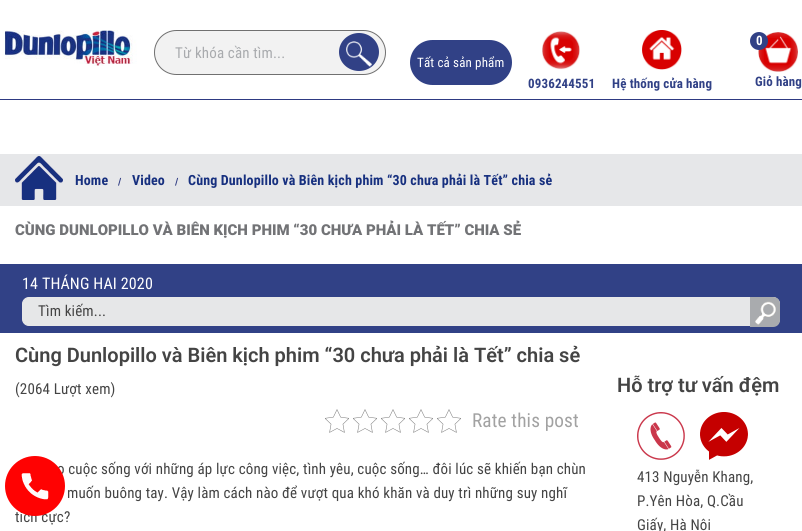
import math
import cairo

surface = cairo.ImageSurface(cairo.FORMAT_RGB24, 802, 531)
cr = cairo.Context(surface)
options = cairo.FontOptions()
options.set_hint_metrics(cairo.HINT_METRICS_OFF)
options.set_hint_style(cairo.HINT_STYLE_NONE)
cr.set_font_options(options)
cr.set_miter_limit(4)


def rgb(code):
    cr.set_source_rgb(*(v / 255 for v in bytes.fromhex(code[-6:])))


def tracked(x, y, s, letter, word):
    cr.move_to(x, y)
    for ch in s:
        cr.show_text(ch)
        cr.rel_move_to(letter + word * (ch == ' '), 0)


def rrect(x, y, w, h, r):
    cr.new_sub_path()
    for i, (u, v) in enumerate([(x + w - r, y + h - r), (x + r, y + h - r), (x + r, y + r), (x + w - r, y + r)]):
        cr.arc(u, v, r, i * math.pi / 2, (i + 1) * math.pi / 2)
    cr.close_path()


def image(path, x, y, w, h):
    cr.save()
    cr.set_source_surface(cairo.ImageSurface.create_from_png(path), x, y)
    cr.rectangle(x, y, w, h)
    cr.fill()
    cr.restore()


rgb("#ffffff")
cr.paint()
rgb("#2e3a82")
cr.rectangle(0, 99, 802, 1)
cr.fill()
image("img/1.png", 2, 30, 135, 36)
rgb("#f2f2f2")
rrect(154.5, 30.5, 231, 44, 22)
cr.fill_preserve()
rgb("#707070")
cr.set_line_width(1)
cr.stroke()
rgb("#314186")
cr.new_path()
cr.move_to(359, 33)
cr.curve_to(370, 33, 379, 41.5, 379, 52)
cr.curve_to(379, 62.5, 370, 71, 359, 71)
cr.curve_to(348, 71, 339, 62.5, 339, 52)
cr.curve_to(339, 41.5, 348, 33, 359, 33)
cr.close_path()
cr.fill()
image("img/2.png", 346, 41, 26, 26)
rrect(410, 40, 102, 45, 22.5)
cr.fill()
image("img/3.png", 758, 32, 40, 40)
cr.arc(759, 41, 9, 0, 2 * math.pi)
cr.fill()
image("img/4.png", 542, 31, 38, 39)
image("img/5.png", 642, 30, 40, 40)
rgb("#e6e7e9")
cr.rectangle(0, 154, 802, 52)
cr.fill()
image("img/6.png", 15, 156, 48, 44)
rgb("#314186")
cr.rectangle(0, 264, 802, 69)
cr.fill()
rgb("#e6e7e8")
rrect(22.5, 297.5, 757, 28, 6.5)
cr.fill_preserve()
rgb("#e8e8e8")
cr.stroke()
rgb("#a9abae")
cr.new_path()
cr.move_to(750, 297)
cr.line_to(773, 297)
cr.curve_to(777, 297, 780, 300, 780, 304)
cr.line_to(780, 320)
cr.curve_to(780, 324, 777, 327, 773, 327)
cr.line_to(750, 327)
cr.close_path()
cr.fill()
image("img/7.png", 755, 301, 21, 24)
image("img/8.png", 325, 409, 24, 24)
image("img/8.png", 353, 409, 24, 24)
image("img/8.png", 381, 409, 24, 24)
image("img/8.png", 409, 409, 24, 24)
image("img/8.png", 437, 409, 24, 24)
image("img/9.png", 637, 412, 48, 48)
image("img/10.png", 700, 412, 48, 48)
cr.select_font_face("Roboto Condensed")
cr.set_font_size(15)
tracked(175, 58, "Từ khóa cần tìm...", 0.15, 0)
cr.set_font_size(13)
rgb("#ffffff")
tracked(417, 67, "Tất cả sản phẩm", 0.15, 0)
cr.select_font_face("Roboto Condensed", cairo.FONT_SLANT_NORMAL, cairo.FONT_WEIGHT_BOLD)
tracked(756, 45, "0", 0.15, 0)
rgb("#314186")
for x, y, s in [
    (755, 86, "Giỏ hàng"),
    (528, 88, "0936244551"),
    (612, 88, "Hệ thống cửa hàng"),
]:
    tracked(x, y, s, 0.15, 0)
cr.set_font_size(14)
rgb("#17307f")
tracked(75, 185, "Home", 0.15, 0)
cr.set_font_size(10)
rgb("#2d3981")
tracked(118, 185, "/", 0.15, 0)
cr.set_font_size(14)
rgb("#17307f")
tracked(132, 185, "Video", 0.15, 0)
cr.set_font_size(10)
rgb("#2d3981")
tracked(175, 185, "/", 0.15, 0)
cr.set_font_size(14)
rgb("#17307f")
tracked(188, 185, "Cùng Dunlopillo và Biên kịch phim “30 chưa phải là Tết” chia sẻ", 0.15, 0)
cr.select_font_face("Roboto Black")
cr.set_font_size(15)
rgb("#727376")
cr.move_to(15, 235)
cr.show_text("CÙNG DUNLOPILLO VÀ BIÊN KỊCH PHIM “30 CHƯA PHẢI LÀ TẾT” CHIA SẺ")
cr.select_font_face("Roboto Condensed")
cr.set_font_size(16)
rgb("#ffffff")
tracked(22, 289, "14 THÁNG HAI 2020", 0.15, 0)
cr.set_font_size(15)
rgb("#444444")
tracked(38, 316, "Tìm kiếm...", 0.15, 0)
cr.select_font_face("Roboto SemiBold")
cr.set_font_size(20)
cr.move_to(15, 362)
cr.show_text("Cùng Dunlopillo và Biên kịch phim “30 chưa phải là Tết” chia sẻ")
cr.select_font_face("Roboto Condensed")
cr.set_font_size(15)
tracked(15, 394, "(2064 Lượt xem)", 0.15, 0)
cr.set_font_size(19.25)
rgb("#a2a2a2")
tracked(472, 427, "Rate this post", 0.15, 0)
cr.set_font_size(15)
rgb("#444444")
for x, y, s in [
    (57, 474, "o cuộc sống với những áp lực công việc, tình yêu, cuộc sống… đôi lúc sẽ khiến bạn chùn"),
    (67, 498, "muốn buông tay. Vậy làm cách nào để vượt qua khó khăn và duy trì những suy nghĩ"),
    (15, 522, "tích cực?"),
]:
    tracked(x, y, s, 0.15, 0)
cr.select_font_face("Roboto SemiBold")
cr.set_font_size(20)
cr.move_to(617, 392)
cr.show_text("Hỗ trợ tư vấn đệm")
cr.select_font_face("Roboto Condensed")
cr.set_font_size(15)
for x, y, s in [
    (637, 482, "413 Nguyễn Khang,"),
    (637, 506, "P.Yên Hòa, Q.Cầu"),
    (637, 530, "Giấy, Hà Nội"),
]:
    tracked(x, y, s, 0.15, 0)
cr.set_source_rgba(1, 0, 0, 0.99)
cr.new_path()
cr.arc(35, 486, 30, 0, 2 * math.pi)
cr.fill()
image("img/11.png", 21, 473, 28, 27)
surface.write_to_png("page.png")
